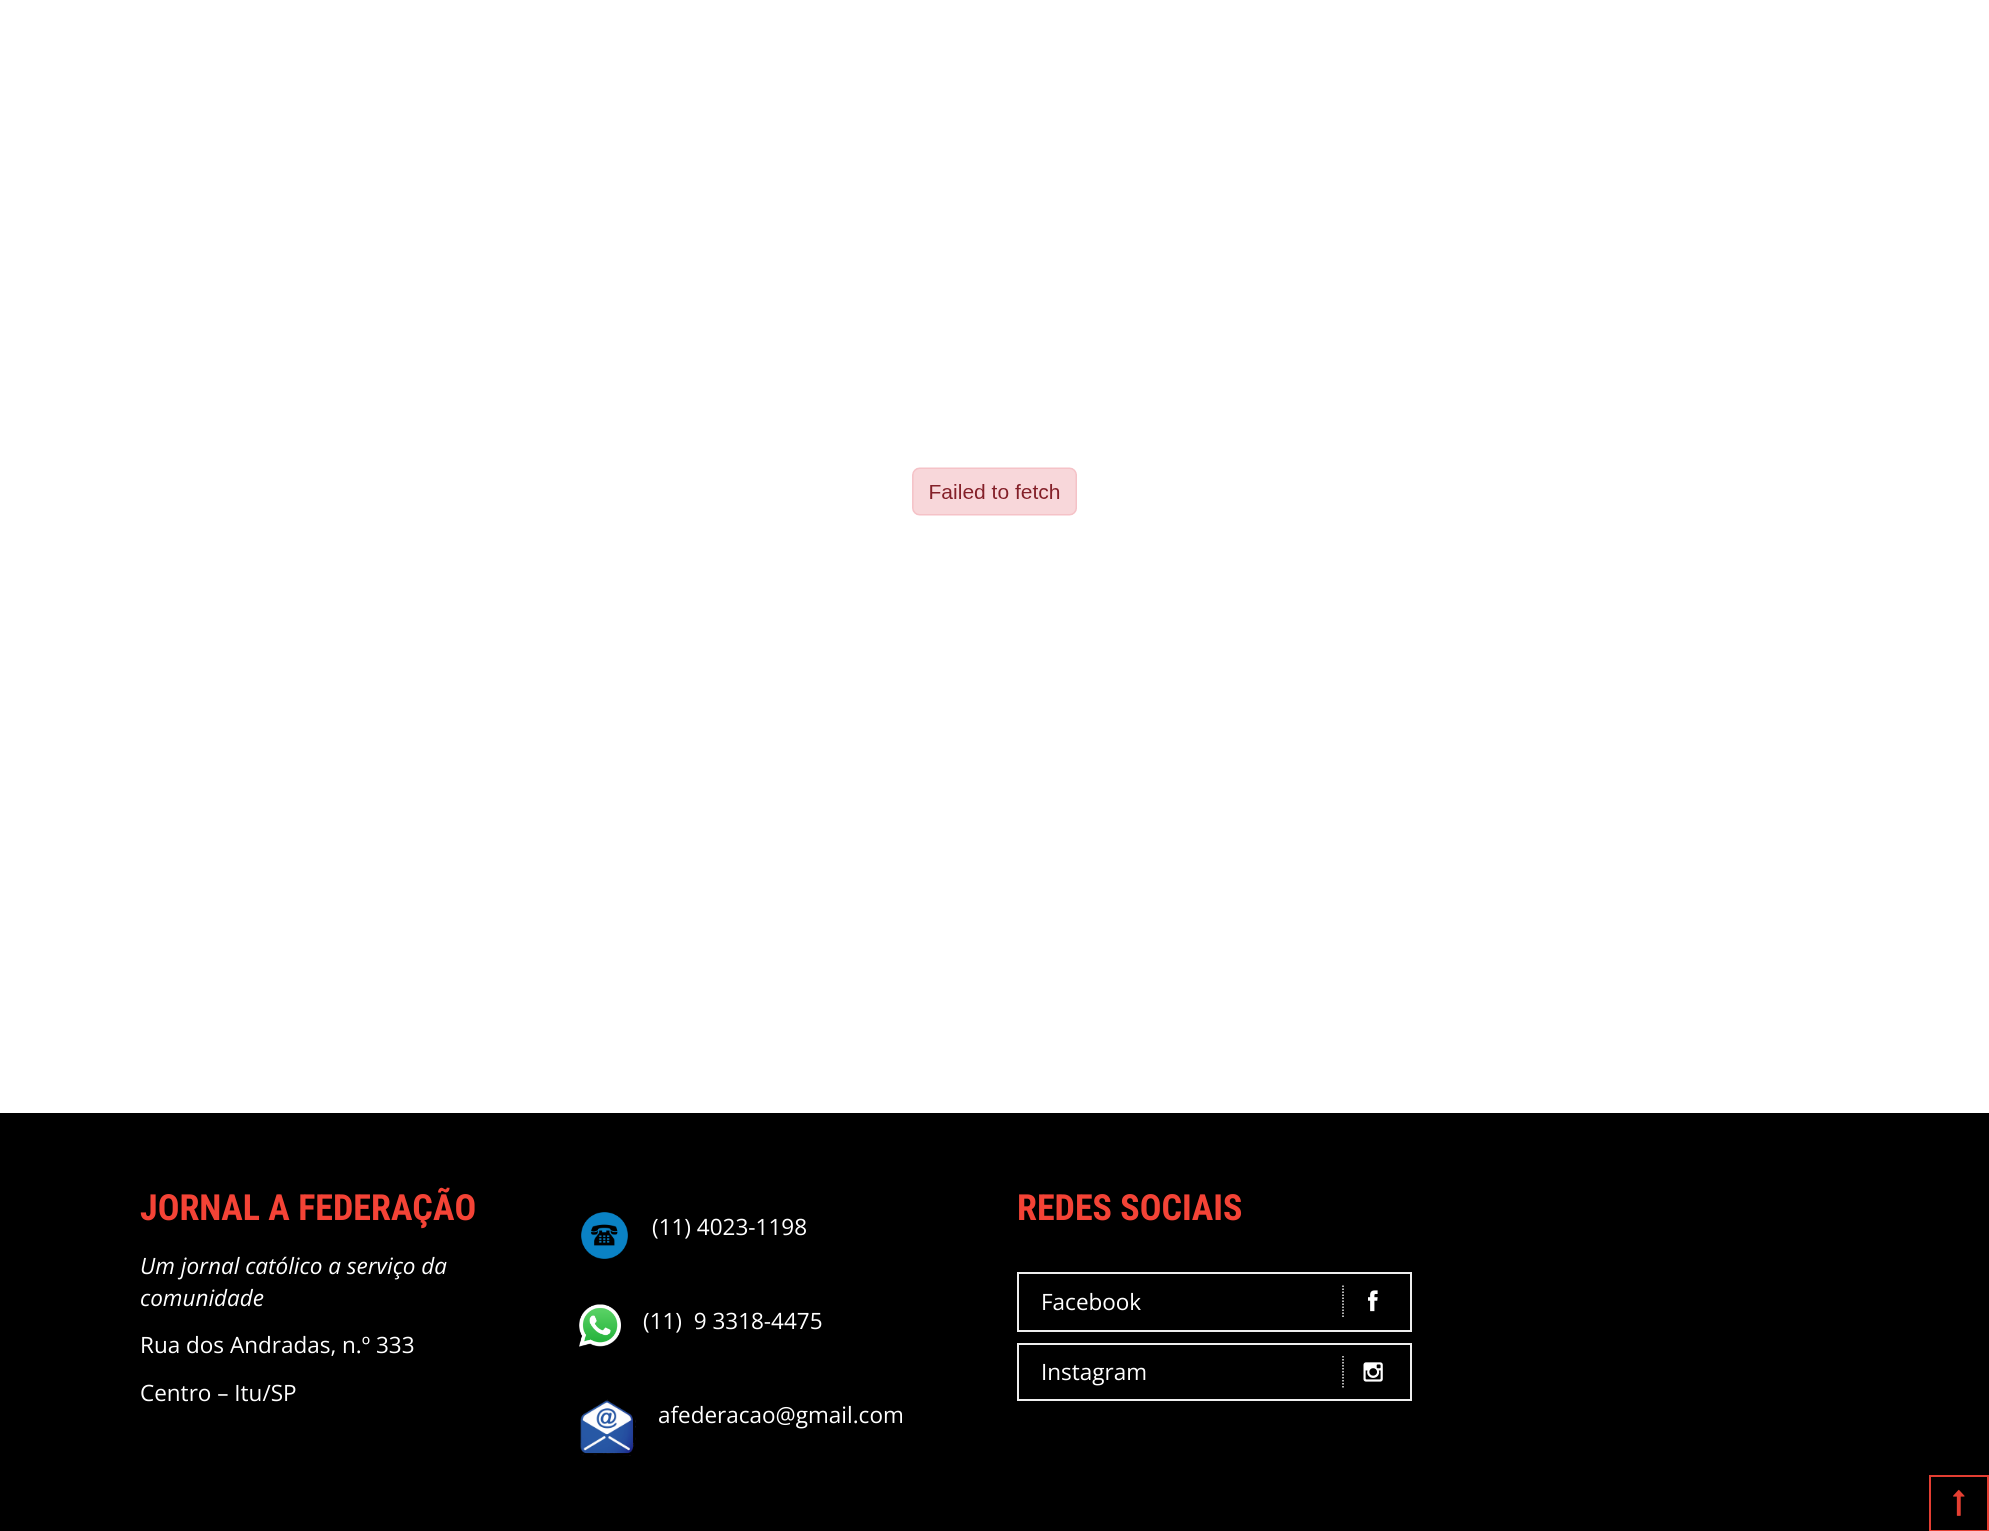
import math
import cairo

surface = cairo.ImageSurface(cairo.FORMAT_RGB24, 1989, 1531)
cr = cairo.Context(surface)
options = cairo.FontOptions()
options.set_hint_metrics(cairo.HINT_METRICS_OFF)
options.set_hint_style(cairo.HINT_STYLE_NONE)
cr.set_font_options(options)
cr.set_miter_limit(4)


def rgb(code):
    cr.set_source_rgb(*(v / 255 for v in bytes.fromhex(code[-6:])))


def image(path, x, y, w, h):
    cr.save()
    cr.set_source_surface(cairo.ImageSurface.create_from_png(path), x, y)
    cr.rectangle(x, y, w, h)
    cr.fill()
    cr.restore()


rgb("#ffffff")
cr.paint()
image("img/1.png", 912, 467, 165, 49)
rgb("#000000")
cr.rectangle(0, 1113, 1989, 418)
cr.fill()
image("img/2.png", 581, 1212, 47, 47)
image("img/3.png", 579, 1304, 42, 43)
image("img/4.png", 580, 1399, 56, 57)
cr.rectangle(1018, 1273, 393, 58)
rgb("#eeeeee")
cr.stroke()
cr.new_path()
cr.move_to(1343, 1285.5)
cr.line_to(1343, 1318.5)
cr.set_line_width(1.5)
cr.set_dash([1.5, 1.5])
cr.stroke()
image("img/5.png", 1368, 1290, 10, 22)
cr.rectangle(1018, 1344, 393, 56)
cr.set_line_width(2)
cr.set_dash([])
cr.stroke()
cr.new_path()
cr.move_to(1343, 1356)
cr.line_to(1343, 1387.5)
cr.set_line_width(1.5)
cr.set_dash([1.5, 1.5])
cr.stroke()
image("img/6.png", 1363, 1362, 20, 20)
cr.rectangle(1930, 1476, 58, 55)
rgb("#e33e32")
cr.set_line_width(2)
cr.set_dash([])
cr.stroke()
image("img/7.png", 1953, 1489, 12, 27)
cr.select_font_face("Roboto Condensed", cairo.FONT_SLANT_NORMAL, cairo.FONT_WEIGHT_BOLD)
cr.set_font_size(36)
rgb("#f44336")
cr.move_to(140, 1220)
cr.show_text("JORNAL A FEDERAÇÃO")
cr.select_font_face("Open Sans", cairo.FONT_SLANT_ITALIC)
cr.set_font_size(22.5)
rgb("#ffffff")
cr.move_to(140, 1274)
cr.show_text("Um jornal católico a serviço da")
cr.move_to(140, 1306)
cr.show_text("comunidade")
cr.select_font_face("Open Sans")
for x, y, s in [
    (140, 1353, "Rua dos Andradas, n.º 333"),
    (140, 1401, "Centro – Itu/SP"),
    (652, 1235, "(11) 4023-1198"),
    (643, 1329, "(11)  9 3318-4475"),
    (658, 1423, "afederacao@gmail.com"),
]:
    cr.move_to(x, y)
    cr.show_text(s)
cr.select_font_face("Roboto Condensed", cairo.FONT_SLANT_NORMAL, cairo.FONT_WEIGHT_BOLD)
cr.set_font_size(36)
rgb("#f44336")
cr.move_to(1017, 1220)
cr.show_text("REDES SOCIAIS")
cr.select_font_face("Open Sans")
cr.set_font_size(22.5)
rgb("#ffffff")
cr.move_to(1041, 1310)
cr.show_text("Facebook")
cr.move_to(1041, 1380)
cr.show_text("Instagram")
surface.write_to_png("page.png")
